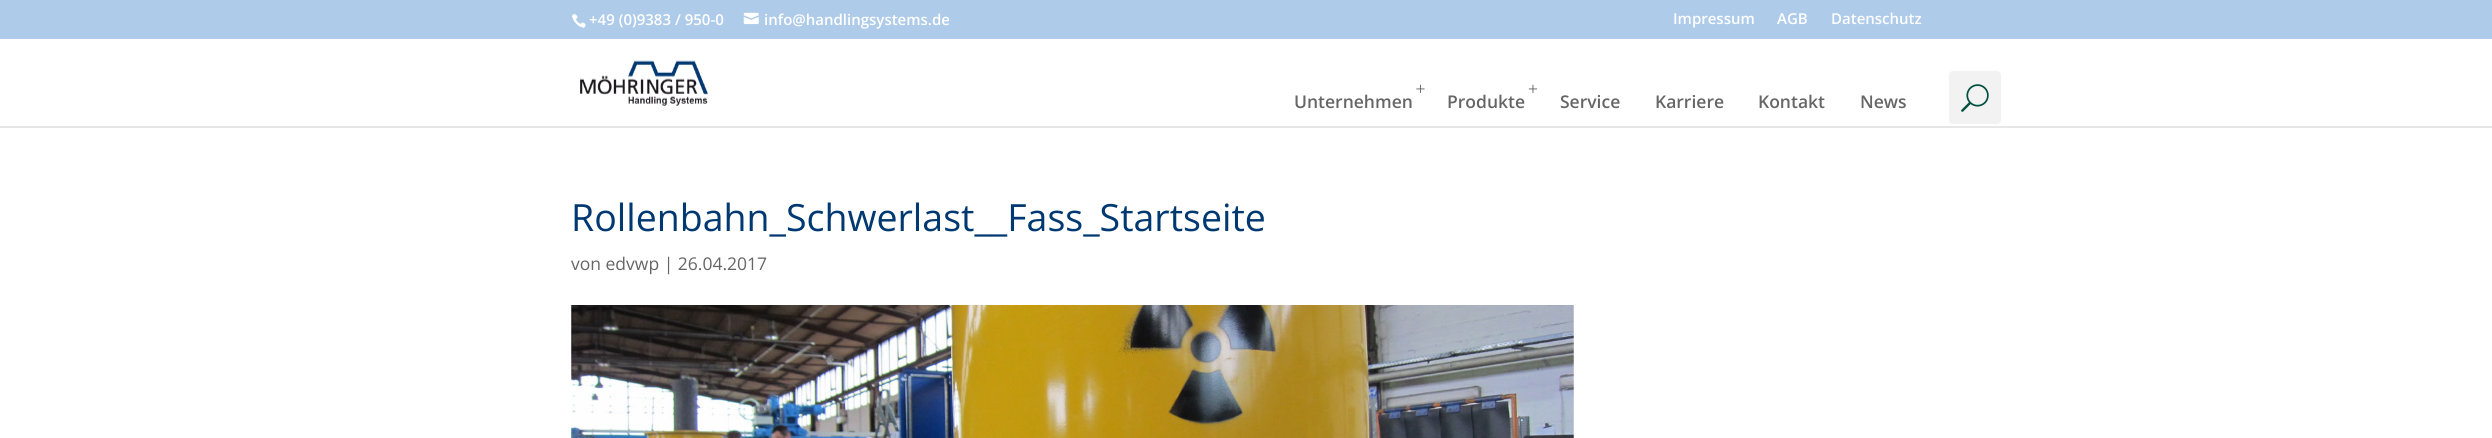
import math
import cairo

surface = cairo.ImageSurface(cairo.FORMAT_RGB24, 2492, 438)
cr = cairo.Context(surface)
options = cairo.FontOptions()
options.set_hint_metrics(cairo.HINT_METRICS_OFF)
options.set_hint_style(cairo.HINT_STYLE_NONE)
cr.set_font_options(options)
cr.set_miter_limit(4)


def rgb(code):
    cr.set_source_rgb(*(v / 255 for v in bytes.fromhex(code[-6:])))


def rrect(x, y, w, h, r):
    cr.new_sub_path()
    for i, (u, v) in enumerate([(x + w - r, y + h - r), (x + r, y + h - r), (x + r, y + r), (x + w - r, y + r)]):
        cr.arc(u, v, r, i * math.pi / 2, (i + 1) * math.pi / 2)
    cr.close_path()


def image(path, x, y, w, h):
    cr.save()
    cr.set_source_surface(cairo.ImageSurface.create_from_png(path), x, y)
    cr.rectangle(x, y, w, h)
    cr.fill()
    cr.restore()


rgb("#ffffff")
cr.paint()
rgb("#aecbe9")
cr.rectangle(0, 0, 2492, 39)
cr.fill()
image("img/1.png", 572, 14, 14, 14)
image("img/2.png", 743, 12, 16, 13)
rgb("#e6e6e6")
cr.new_path()
cr.move_to(0, 126)
cr.line_to(0, 128)
cr.line_to(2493, 128)
cr.line_to(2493, 40)
cr.line_to(2492, 40)
cr.line_to(2492, 126)
cr.close_path()
cr.fill()
image("img/3.png", 580, 60, 128, 46)
image("img/4.png", 1416, 84, 9, 9)
image("img/5.png", 1528, 84, 10, 9)
rgb("#f2f2f2")
rrect(1949, 71, 52, 53, 4)
cr.fill()
image("img/6.png", 1961, 84, 28, 28)
image("img/7.png", 571, 305, 1003, 133)
cr.select_font_face("Open Sans SemiBold")
cr.set_font_size(15)
rgb("#ffffff")
for x, y, s in [
    (589, 25, "+49 (0)9383 / 950-0"),
    (764, 25, "info@handlingsystems.de"),
    (1673, 24, "Impressum"),
    (1777, 24, "AGB"),
    (1831, 24, "Datenschutz"),
]:
    cr.move_to(x, y)
    cr.show_text(s)
cr.set_font_size(17.5)
rgb("#666666")
for x, y, s in [
    (1294, 108, "Unternehmen"),
    (1447, 108, "Produkte"),
    (1560, 108, "Service"),
    (1655, 108, "Karriere"),
    (1758, 108, "Kontakt"),
    (1860, 108, "News"),
]:
    cr.move_to(x, y)
    cr.show_text(s)
cr.select_font_face("Open Sans")
cr.set_font_size(37.5)
rgb("#003871")
cr.move_to(571, 231)
cr.show_text("Rollenbahn_Schwerlast__Fass_Startseite")
cr.set_font_size(17.5)
rgb("#666666")
cr.move_to(571, 270)
cr.show_text("von edvwp | 26.04.2017")
surface.write_to_png("page.png")
